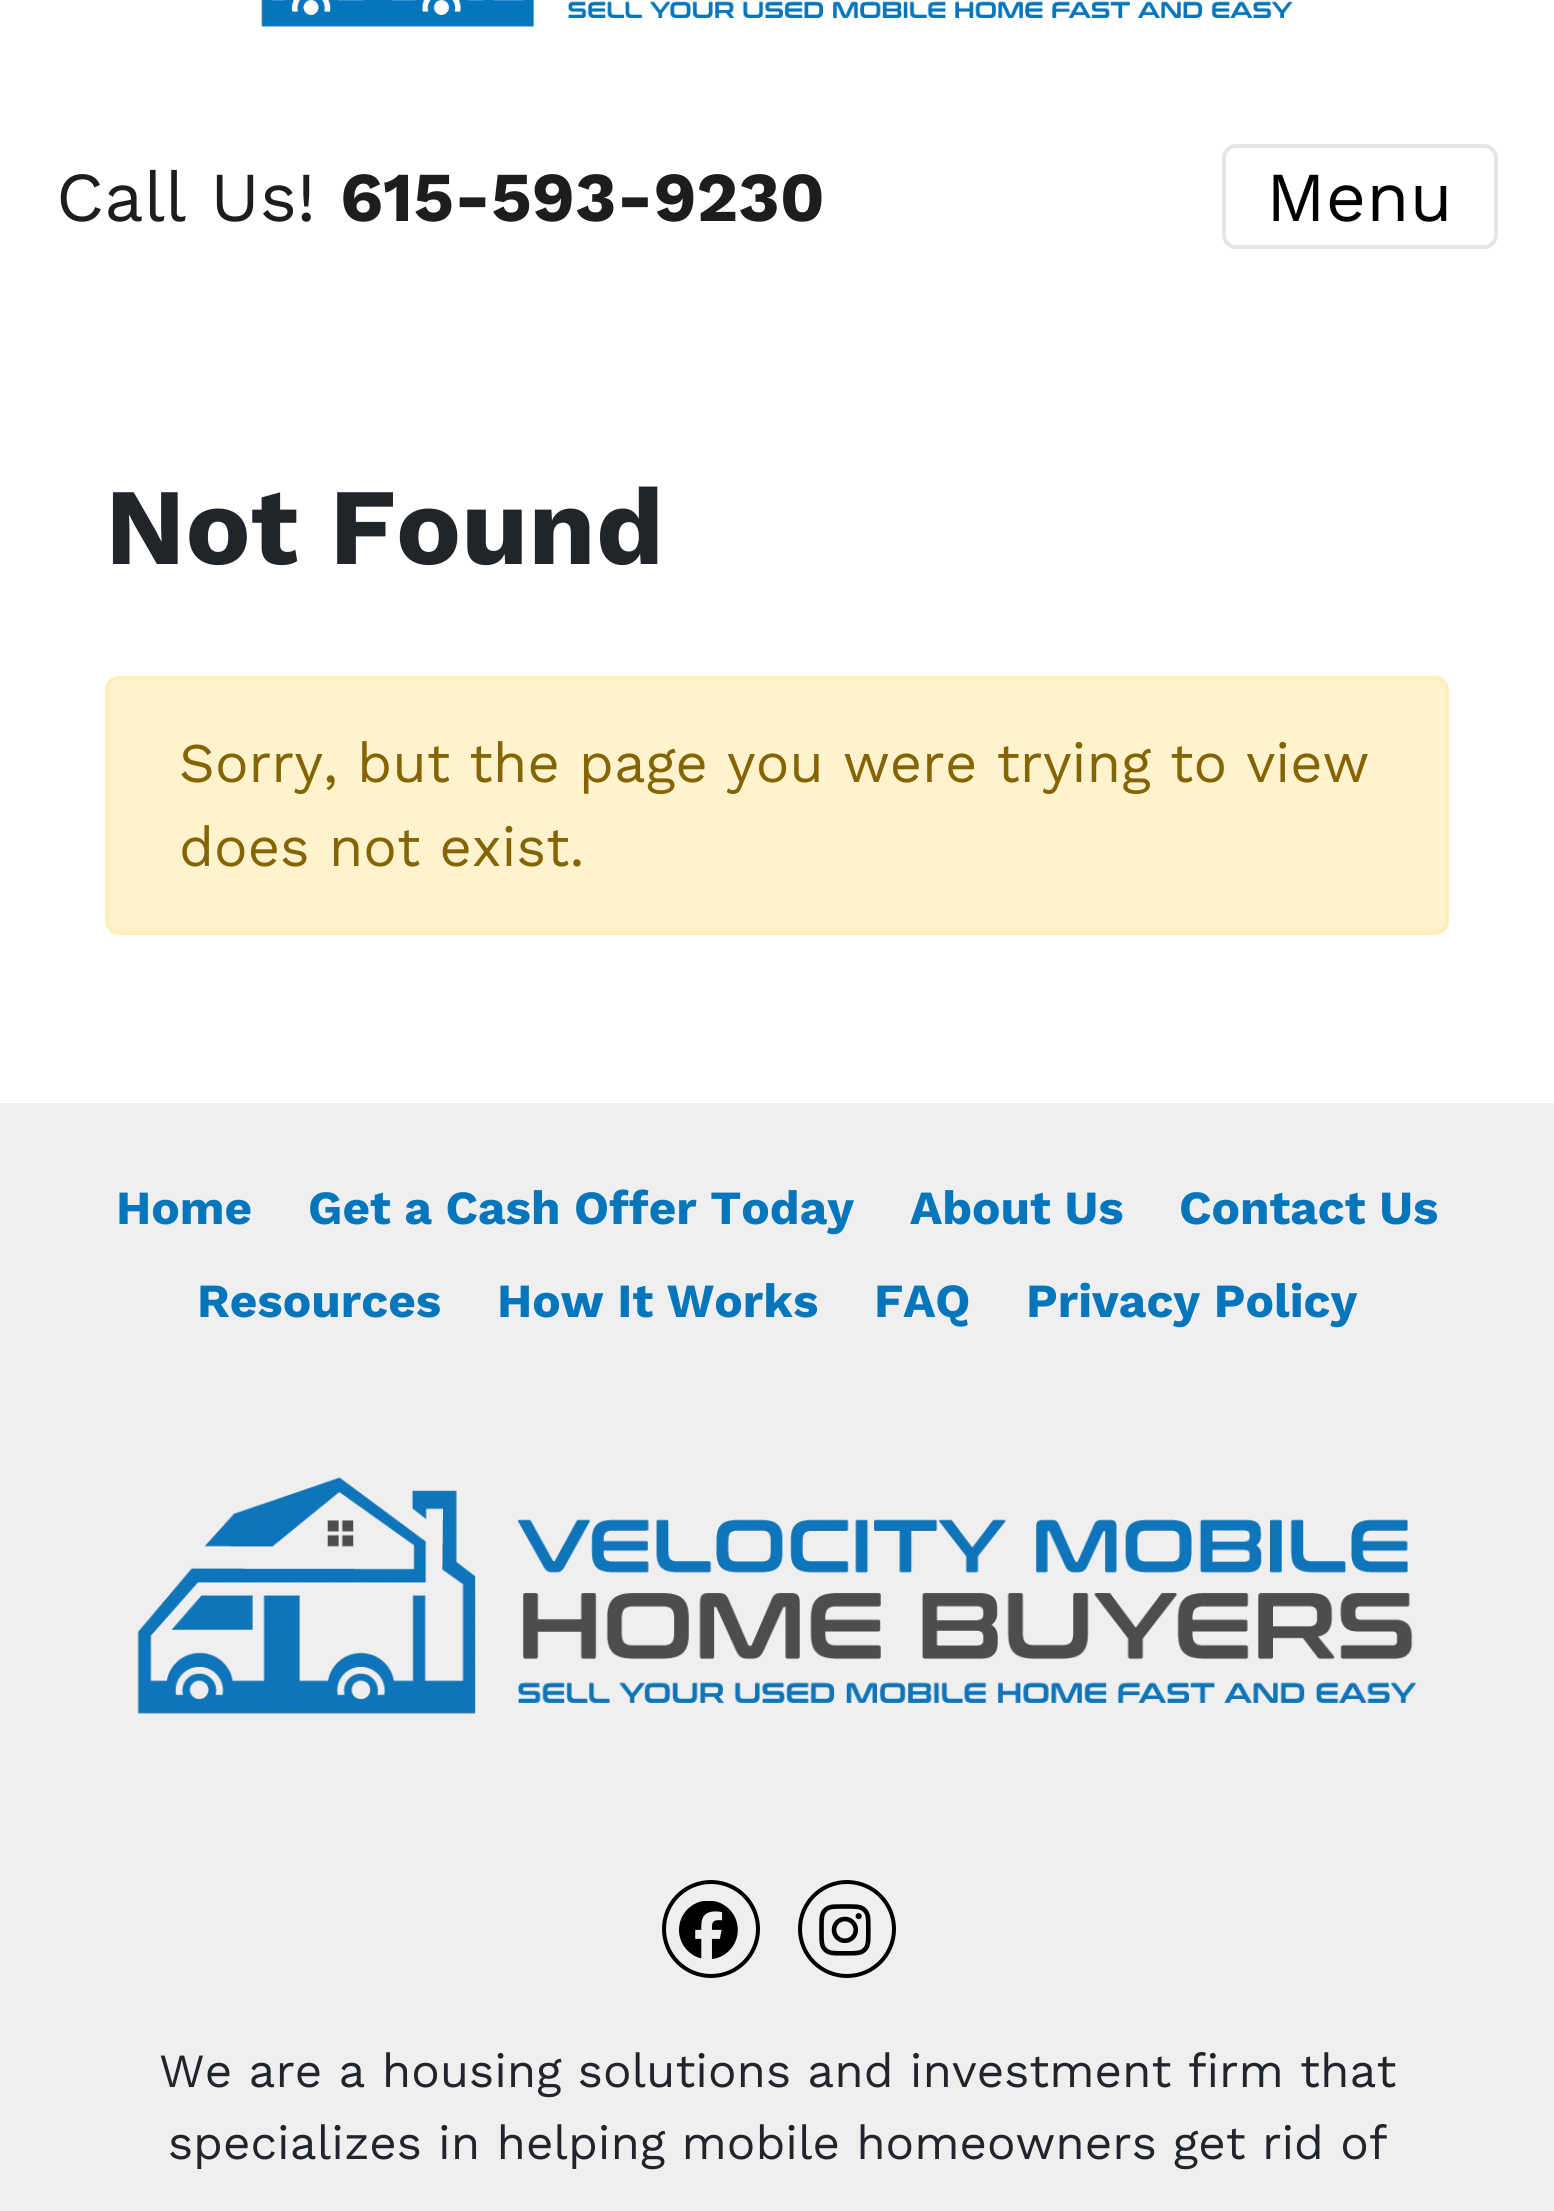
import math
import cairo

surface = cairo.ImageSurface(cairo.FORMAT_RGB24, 1554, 2211)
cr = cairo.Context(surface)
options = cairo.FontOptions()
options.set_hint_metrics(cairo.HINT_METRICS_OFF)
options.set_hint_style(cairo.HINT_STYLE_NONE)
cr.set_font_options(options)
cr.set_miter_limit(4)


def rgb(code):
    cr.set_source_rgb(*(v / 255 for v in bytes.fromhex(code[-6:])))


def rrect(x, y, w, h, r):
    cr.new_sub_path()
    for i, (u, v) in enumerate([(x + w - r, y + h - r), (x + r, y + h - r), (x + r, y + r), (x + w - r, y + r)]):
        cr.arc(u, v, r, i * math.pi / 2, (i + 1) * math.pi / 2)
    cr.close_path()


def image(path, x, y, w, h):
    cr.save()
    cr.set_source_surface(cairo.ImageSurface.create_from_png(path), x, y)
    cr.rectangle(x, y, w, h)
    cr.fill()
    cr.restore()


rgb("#ffffff")
cr.paint()
image("img/1.png", 261, 0, 1032, 27)
rrect(1224, 146, 272, 101, 12)
rgb("#e6e6e6")
cr.set_line_width(4)
cr.stroke()
rgb("#fff3cd")
rrect(107, 678, 1340, 255, 12)
cr.fill_preserve()
rgb("#ffeeba")
cr.stroke()
rgb("#efefef")
cr.rectangle(0, 1103, 1554, 1108)
cr.fill()
image("img/2.png", 137, 1477, 1280, 237)
cr.arc(711, 1929, 47, 0, 2 * math.pi)
rgb("#000000")
cr.stroke()
image("img/3.png", 679, 1901, 59, 58)
cr.arc(847, 1929, 47, 0, 2 * math.pi)
cr.stroke()
image("img/4.png", 819, 1904, 52, 52)
cr.select_font_face("Work Sans")
cr.set_font_size(70)
rgb("#1d1d1d")
cr.move_to(56, 221)
cr.show_text("Call Us!")
cr.select_font_face("Work Sans", cairo.FONT_SLANT_NORMAL, cairo.FONT_WEIGHT_BOLD)
cr.move_to(340, 221)
cr.show_text("615-593-9230")
cr.select_font_face("Work Sans")
rgb("#000000")
cr.move_to(1266, 221)
cr.show_text("Menu")
cr.select_font_face("Work Sans", cairo.FONT_SLANT_NORMAL, cairo.FONT_WEIGHT_BOLD)
cr.set_font_size(108.75)
rgb("#212529")
cr.move_to(105, 564)
cr.show_text("Not Found")
cr.select_font_face("Work Sans")
cr.set_font_size(56)
rgb("#856404")
cr.move_to(179, 782)
cr.show_text("Sorry, but the page you were trying to view")
cr.move_to(179, 866)
cr.show_text("does not exist.")
cr.select_font_face("Work Sans", cairo.FONT_SLANT_NORMAL, cairo.FONT_WEIGHT_BOLD)
cr.set_font_size(47.6)
rgb("#0676bc")
for x, y, s in [
    (116, 1224, "Home"),
    (308, 1224, "Get a Cash Offer Today"),
    (910, 1224, "About Us"),
    (1179, 1224, "Contact Us"),
    (197, 1317, "Resources"),
    (497, 1317, "How It Works"),
    (874, 1317, "FAQ"),
    (1026, 1317, "Privacy Policy"),
]:
    cr.move_to(x, y)
    cr.show_text(s)
cr.select_font_face("Work Sans")
rgb("#212529")
cr.move_to(159, 2087)
cr.show_text("We are a housing solutions and investment firm that")
cr.move_to(168, 2159)
cr.show_text("specializes in helping mobile homeowners get rid of")
surface.write_to_png("page.png")
